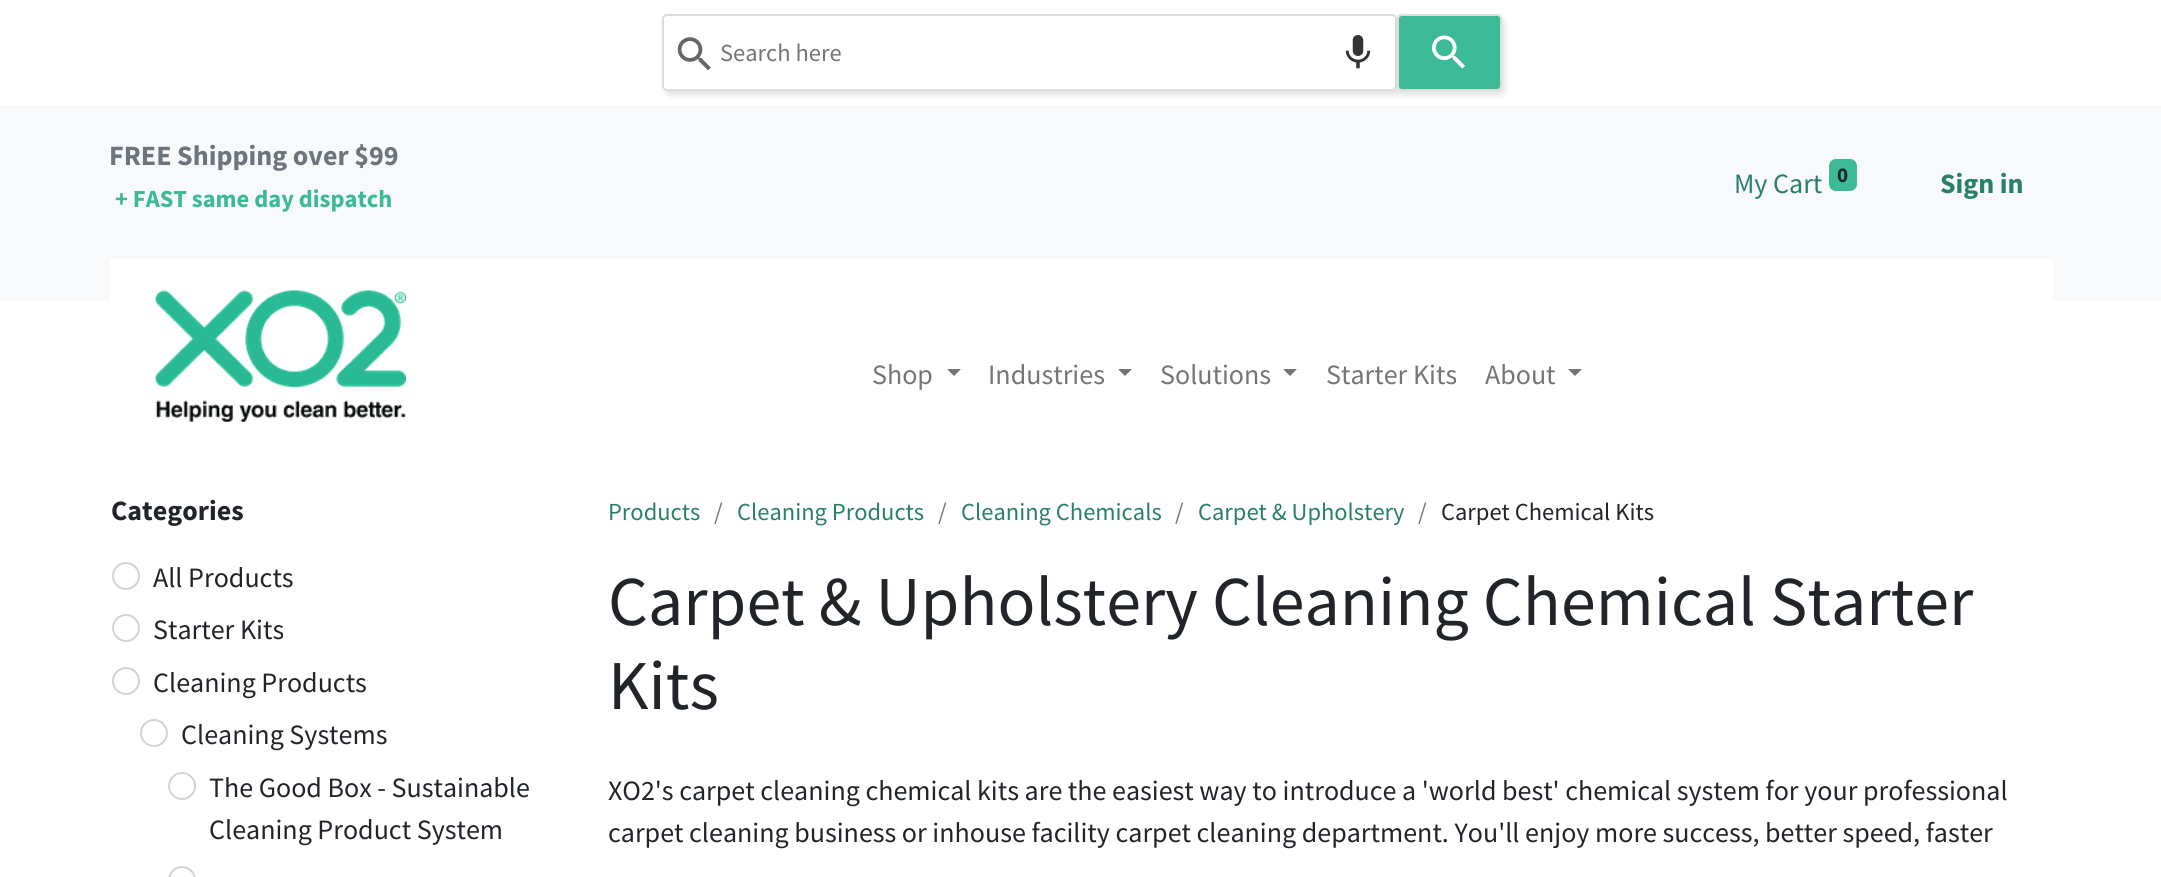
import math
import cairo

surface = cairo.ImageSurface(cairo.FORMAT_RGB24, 2161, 877)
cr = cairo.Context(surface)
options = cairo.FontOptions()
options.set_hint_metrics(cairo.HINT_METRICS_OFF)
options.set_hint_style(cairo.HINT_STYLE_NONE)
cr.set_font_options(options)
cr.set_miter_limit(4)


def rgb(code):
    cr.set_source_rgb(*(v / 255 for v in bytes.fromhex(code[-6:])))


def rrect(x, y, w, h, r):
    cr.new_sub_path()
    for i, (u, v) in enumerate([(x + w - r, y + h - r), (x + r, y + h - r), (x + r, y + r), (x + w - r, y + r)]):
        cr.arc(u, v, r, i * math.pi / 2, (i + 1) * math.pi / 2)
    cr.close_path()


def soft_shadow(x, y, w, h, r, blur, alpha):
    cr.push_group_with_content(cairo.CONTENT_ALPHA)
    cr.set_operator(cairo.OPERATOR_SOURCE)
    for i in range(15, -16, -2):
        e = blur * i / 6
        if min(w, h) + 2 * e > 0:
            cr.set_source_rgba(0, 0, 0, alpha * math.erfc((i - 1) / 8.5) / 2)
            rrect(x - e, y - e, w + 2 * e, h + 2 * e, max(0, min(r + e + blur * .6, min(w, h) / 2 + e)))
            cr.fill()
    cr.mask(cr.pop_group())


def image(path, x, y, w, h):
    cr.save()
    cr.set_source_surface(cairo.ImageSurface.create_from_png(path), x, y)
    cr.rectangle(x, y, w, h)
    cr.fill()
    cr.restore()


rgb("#ffffff")
cr.paint()
rgb("#000000")
soft_shadow(665, 18, 735, 77, 5, 3.5, 0.12)
rgb("#ffffff")
rrect(662, 14, 735, 77, 5)
cr.fill()
image("img/1.png", 677, 37, 34, 34)
rrect(663, 15, 733, 75, 4)
rgb("#dddddd")
cr.stroke()
image("img/2.png", 1345, 35, 26, 34)
rgb("#000000")
soft_shadow(1400, 18, 105, 77, 5, 3.5, 0.12)
rgb("#3cb996")
rrect(1398, 15, 103, 75, 4)
cr.fill_preserve()
rgb("#dddddd")
cr.stroke()
image("img/3.png", 1431, 35, 34, 34)
rgb("#f8f9fa")
cr.rectangle(0, 105, 2161, 196)
cr.fill()
rgb("#3cb996")
rrect(1829, 159, 28, 32, 7)
cr.fill()
rgb("#ffffff")
rrect(110, 259, 1943, 194, 7)
cr.fill()
cr.new_path()
cr.move_to(119, 268)
cr.line_to(2044, 268)
cr.line_to(2044, 444.5)
cr.line_to(119, 444.5)
cr.close_path()
cr.set_line_width(17.5)
cr.stroke()
image("img/4.png", 155, 290, 251, 132)
rgb("#737373")
cr.new_path()
cr.move_to(947, 369)
cr.line_to(961, 369)
cr.line_to(954, 376)
cr.close_path()
cr.fill()
cr.new_path()
cr.move_to(1118, 369)
cr.line_to(1132, 369)
cr.line_to(1125, 376)
cr.close_path()
cr.fill()
cr.new_path()
cr.move_to(1283, 369)
cr.line_to(1297, 369)
cr.line_to(1290, 376)
cr.close_path()
cr.fill()
cr.new_path()
cr.move_to(1568, 369)
cr.line_to(1582, 369)
cr.line_to(1575, 376)
cr.close_path()
cr.fill()
cr.arc(126, 576, 13, 0, 2 * math.pi)
rgb("#ced4da")
cr.set_line_width(2)
cr.stroke()
cr.arc(126, 628, 13, 0, 2 * math.pi)
cr.stroke()
cr.arc(126, 681, 13, 0, 2 * math.pi)
cr.stroke()
cr.arc(154, 733, 13, 0, 2 * math.pi)
cr.stroke()
cr.arc(182, 786, 13, 0, 2 * math.pi)
cr.stroke()
rrect(169, 867, 26, 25, 13)
cr.stroke()
cr.select_font_face("Source Sans Pro")
cr.set_font_size(24.5)
rgb("#757575")
cr.move_to(720, 61)
cr.show_text("Search here")
cr.select_font_face("Source Sans Pro", cairo.FONT_SLANT_NORMAL, cairo.FONT_WEIGHT_BOLD)
cr.set_font_size(28)
rgb("#6c757d")
cr.move_to(109, 165)
cr.show_text("FREE Shipping over $99")
cr.set_font_size(24.5)
rgb("#3cb996")
cr.move_to(115, 207)
cr.show_text("+ FAST same day dispatch")
cr.select_font_face("Source Sans Pro")
cr.set_font_size(28)
rgb("#297f67")
cr.move_to(1734, 193)
cr.show_text("My Cart")
cr.select_font_face("Source Sans Pro", cairo.FONT_SLANT_NORMAL, cairo.FONT_WEIGHT_BOLD)
cr.set_font_size(21)
rgb("#212529")
cr.move_to(1837, 182)
cr.show_text("0")
cr.set_font_size(28)
rgb("#297f67")
cr.move_to(1940, 193)
cr.show_text("Sign in")
cr.select_font_face("Source Sans Pro")
rgb("#757575")
for x, y, s in [
    (872, 384, "Shop"),
    (988, 384, "Industries"),
    (1160, 384, "Solutions"),
    (1326, 384, "Starter Kits"),
    (1485, 384, "About"),
]:
    cr.move_to(x, y)
    cr.show_text(s)
cr.select_font_face("Source Sans Pro", cairo.FONT_SLANT_NORMAL, cairo.FONT_WEIGHT_BOLD)
rgb("#212529")
cr.move_to(111, 520)
cr.show_text("Categories")
cr.select_font_face("Source Sans Pro")
for x, y, s in [
    (153, 587, "All Products"),
    (153, 639, "Starter Kits"),
    (153, 692, "Cleaning Products"),
    (181, 744, "Cleaning Systems"),
    (209, 797, "The Good Box - Sustainable"),
    (209, 839, "Cleaning Product System"),
]:
    cr.move_to(x, y)
    cr.show_text(s)
cr.set_font_size(24.5)
rgb("#297f67")
cr.move_to(608, 520)
cr.show_text("Products")
rgb("#6c757d")
cr.move_to(714, 520)
cr.show_text("/")
rgb("#297f67")
cr.move_to(737, 520)
cr.show_text("Cleaning Products")
rgb("#6c757d")
cr.move_to(938, 520)
cr.show_text("/")
rgb("#297f67")
cr.move_to(961, 520)
cr.show_text("Cleaning Chemicals")
rgb("#6c757d")
cr.move_to(1175, 520)
cr.show_text("/")
rgb("#297f67")
cr.move_to(1198, 520)
cr.show_text("Carpet & Upholstery")
rgb("#6c757d")
cr.move_to(1418, 520)
cr.show_text("/")
rgb("#212529")
cr.move_to(1441, 520)
cr.show_text("Carpet Chemical Kits")
cr.set_font_size(70)
cr.move_to(608, 625)
cr.show_text("Carpet & Upholstery Cleaning Chemical Starter")
cr.move_to(608, 709)
cr.show_text("Kits")
cr.set_font_size(28)
cr.move_to(608, 800)
cr.show_text("XO2's carpet cleaning chemical kits are the easiest way to introduce a 'world best' chemical system for your professional")
cr.move_to(608, 842)
cr.show_text("carpet cleaning business or inhouse facility carpet cleaning department. You'll enjoy more success, better speed, faster")
surface.write_to_png("page.png")
